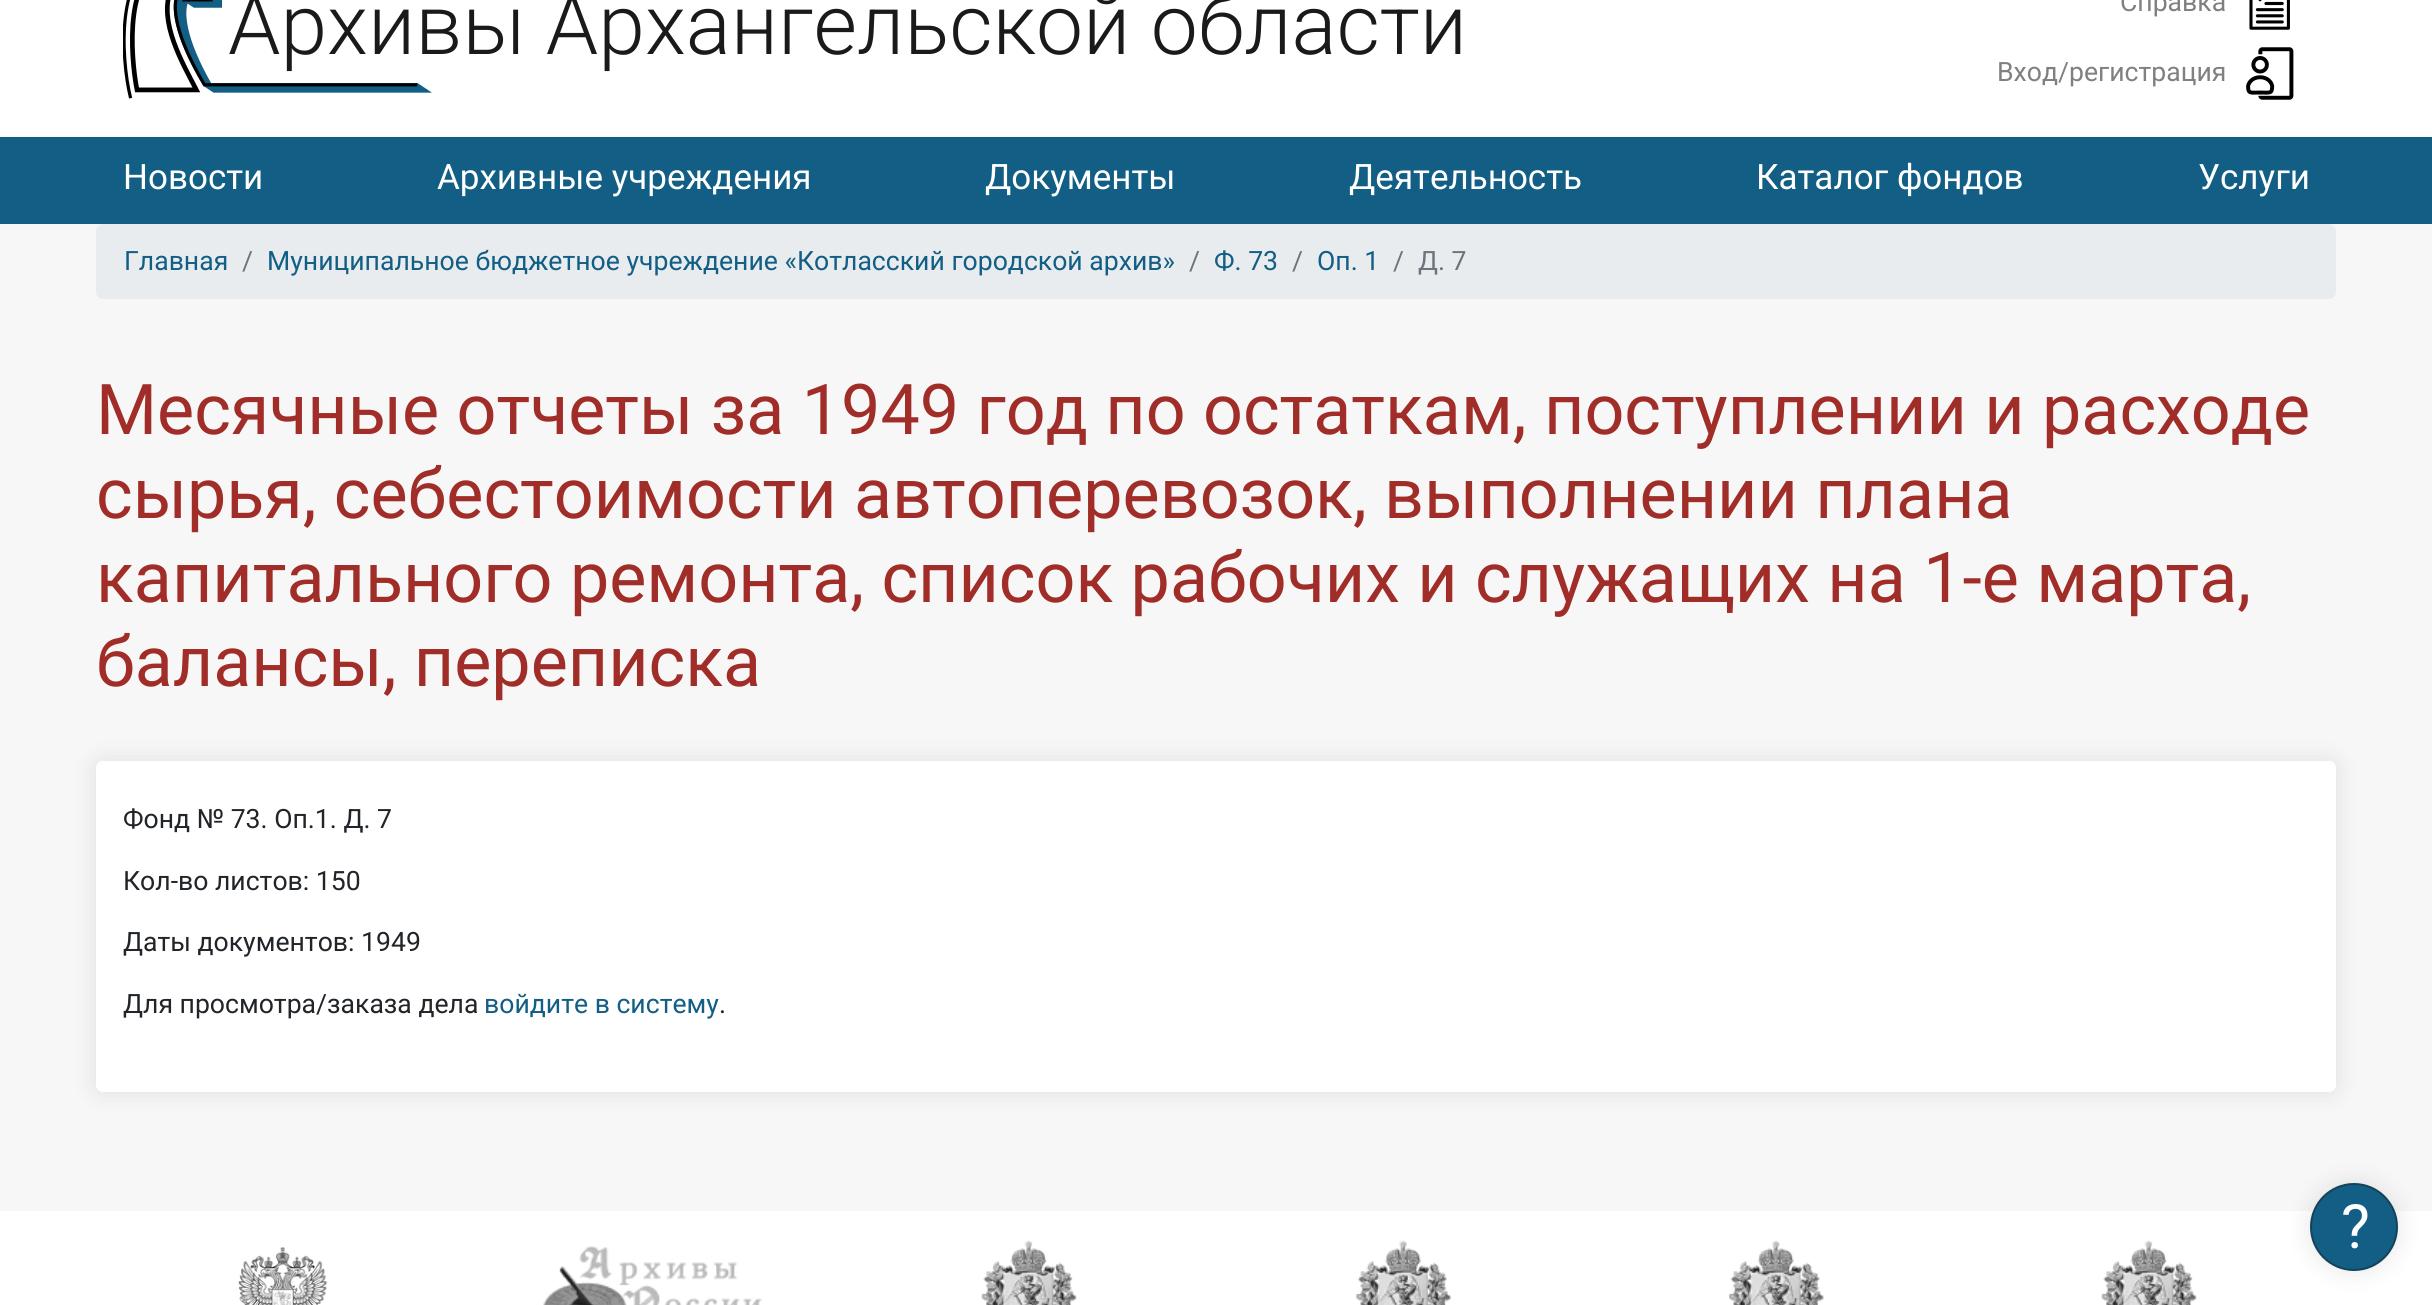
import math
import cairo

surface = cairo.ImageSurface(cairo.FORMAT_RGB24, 2432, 1305)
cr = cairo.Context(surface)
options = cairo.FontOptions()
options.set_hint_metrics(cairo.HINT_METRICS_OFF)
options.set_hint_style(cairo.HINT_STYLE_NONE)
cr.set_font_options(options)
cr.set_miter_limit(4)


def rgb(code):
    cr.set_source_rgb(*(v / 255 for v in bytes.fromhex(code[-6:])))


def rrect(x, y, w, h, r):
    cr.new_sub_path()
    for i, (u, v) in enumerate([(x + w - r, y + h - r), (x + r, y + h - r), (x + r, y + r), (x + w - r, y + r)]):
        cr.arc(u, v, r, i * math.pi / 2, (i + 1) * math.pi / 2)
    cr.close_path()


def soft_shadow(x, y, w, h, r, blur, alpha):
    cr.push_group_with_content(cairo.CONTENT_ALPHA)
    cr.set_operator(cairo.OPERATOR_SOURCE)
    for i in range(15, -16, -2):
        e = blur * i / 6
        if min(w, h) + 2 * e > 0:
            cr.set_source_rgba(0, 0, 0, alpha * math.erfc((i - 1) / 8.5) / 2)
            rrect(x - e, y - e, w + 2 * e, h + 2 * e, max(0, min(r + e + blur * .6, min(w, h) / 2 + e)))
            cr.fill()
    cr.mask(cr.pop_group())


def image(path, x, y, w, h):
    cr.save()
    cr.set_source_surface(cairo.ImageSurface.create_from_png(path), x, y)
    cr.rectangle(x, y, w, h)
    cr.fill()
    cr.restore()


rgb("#f7f7f7")
cr.paint()
rgb("#ffffff")
cr.rectangle(0, 0, 2432, 137)
cr.fill()
image("img/1.png", 123, 0, 309, 99)
image("img/2.png", 2249, 0, 41, 30)
image("img/3.png", 2246, 47, 48, 53)
rgb("#125e84")
cr.rectangle(0, 137, 2432, 87)
cr.fill()
rgb("#e9ecef")
rrect(96, 224, 2240, 75, 7)
cr.fill()
rgb("#000000")
soft_shadow(96, 761, 2240, 331, 7, 12, 0.1)
rgb("#ffffff")
rrect(96, 761, 2240, 331, 7)
cr.fill()
cr.rectangle(0, 1211, 2432, 94)
cr.fill()
rgb("#000000")
soft_shadow(2310, 1183, 88, 88, 44, 12, 0.1)
rgb("#125e84")
cr.arc(2354, 1227, 43, 0, 2 * math.pi)
cr.fill_preserve()
rgb("#144259")
cr.stroke()
image("img/4.png", 238, 1247, 90, 58)
image("img/5.png", 543, 1246, 219, 59)
image("img/6.png", 981, 1240, 96, 65)
image("img/7.png", 1355, 1240, 96, 65)
image("img/8.png", 1728, 1240, 96, 65)
image("img/6.png", 2101, 1240, 96, 65)
cr.select_font_face("Roboto Light")
cr.set_font_size(84)
rgb("#1a1a1a")
cr.move_to(228, 54)
cr.show_text("Архивы Архангельской области")
cr.select_font_face("Roboto")
cr.set_font_size(26.6)
rgb("#808080")
cr.move_to(2120, 11)
cr.show_text("Справка")
cr.move_to(1997, 81)
cr.show_text("Вход/регистрация")
cr.set_font_size(35)
rgb("#ffffff")
for x, y, s in [
    (123, 189, "Новости"),
    (437, 189, "Архивные учреждения"),
    (985, 189, "Документы"),
    (1349, 189, "Деятельность"),
    (1756, 189, "Каталог фондов"),
    (2198, 189, "Услуги"),
]:
    cr.move_to(x, y)
    cr.show_text(s)
cr.set_font_size(26.6)
rgb("#125e84")
cr.move_to(124, 270)
cr.show_text("Главная")
rgb("#6c757d")
cr.move_to(242, 270)
cr.show_text("/")
rgb("#125e84")
cr.move_to(267, 270)
cr.show_text("Муниципальное бюджетное учреждение «Котласский городской архив»")
rgb("#6c757d")
cr.move_to(1189, 270)
cr.show_text("/")
rgb("#125e84")
cr.move_to(1214, 270)
cr.show_text("Ф. 73")
rgb("#6c757d")
cr.move_to(1292, 270)
cr.show_text("/")
rgb("#125e84")
cr.move_to(1317, 270)
cr.show_text("Оп. 1")
rgb("#6c757d")
cr.move_to(1393, 270)
cr.show_text("/")
cr.move_to(1418, 270)
cr.show_text("Д. 7")
cr.set_font_size(70)
rgb("#a12d29")
for x, y, s in [
    (96, 434, "Месячные отчеты за 1949 год по остаткам, поступлении и расходе"),
    (96, 518, "сырья, себестоимости автоперевозок, выполнении плана"),
    (96, 602, "капитального ремонта, список рабочих и служащих на 1-е марта,"),
    (96, 686, "балансы, переписка"),
]:
    cr.move_to(x, y)
    cr.show_text(s)
cr.set_font_size(26.6)
rgb("#212529")
for x, y, s in [
    (123, 828, "Фонд № 73. Оп.1. Д. 7"),
    (123, 890, "Кол-во листов: 150"),
    (123, 951, "Даты документов: 1949"),
    (123, 1013, "Для просмотра/заказа дела"),
]:
    cr.move_to(x, y)
    cr.show_text(s)
rgb("#125e84")
cr.move_to(484, 1013)
cr.show_text("войдите в систему")
rgb("#212529")
cr.move_to(719, 1013)
cr.show_text(".")
cr.set_font_size(61)
rgb("#ffffff")
cr.move_to(2341, 1248)
cr.show_text("?")
surface.write_to_png("page.png")
